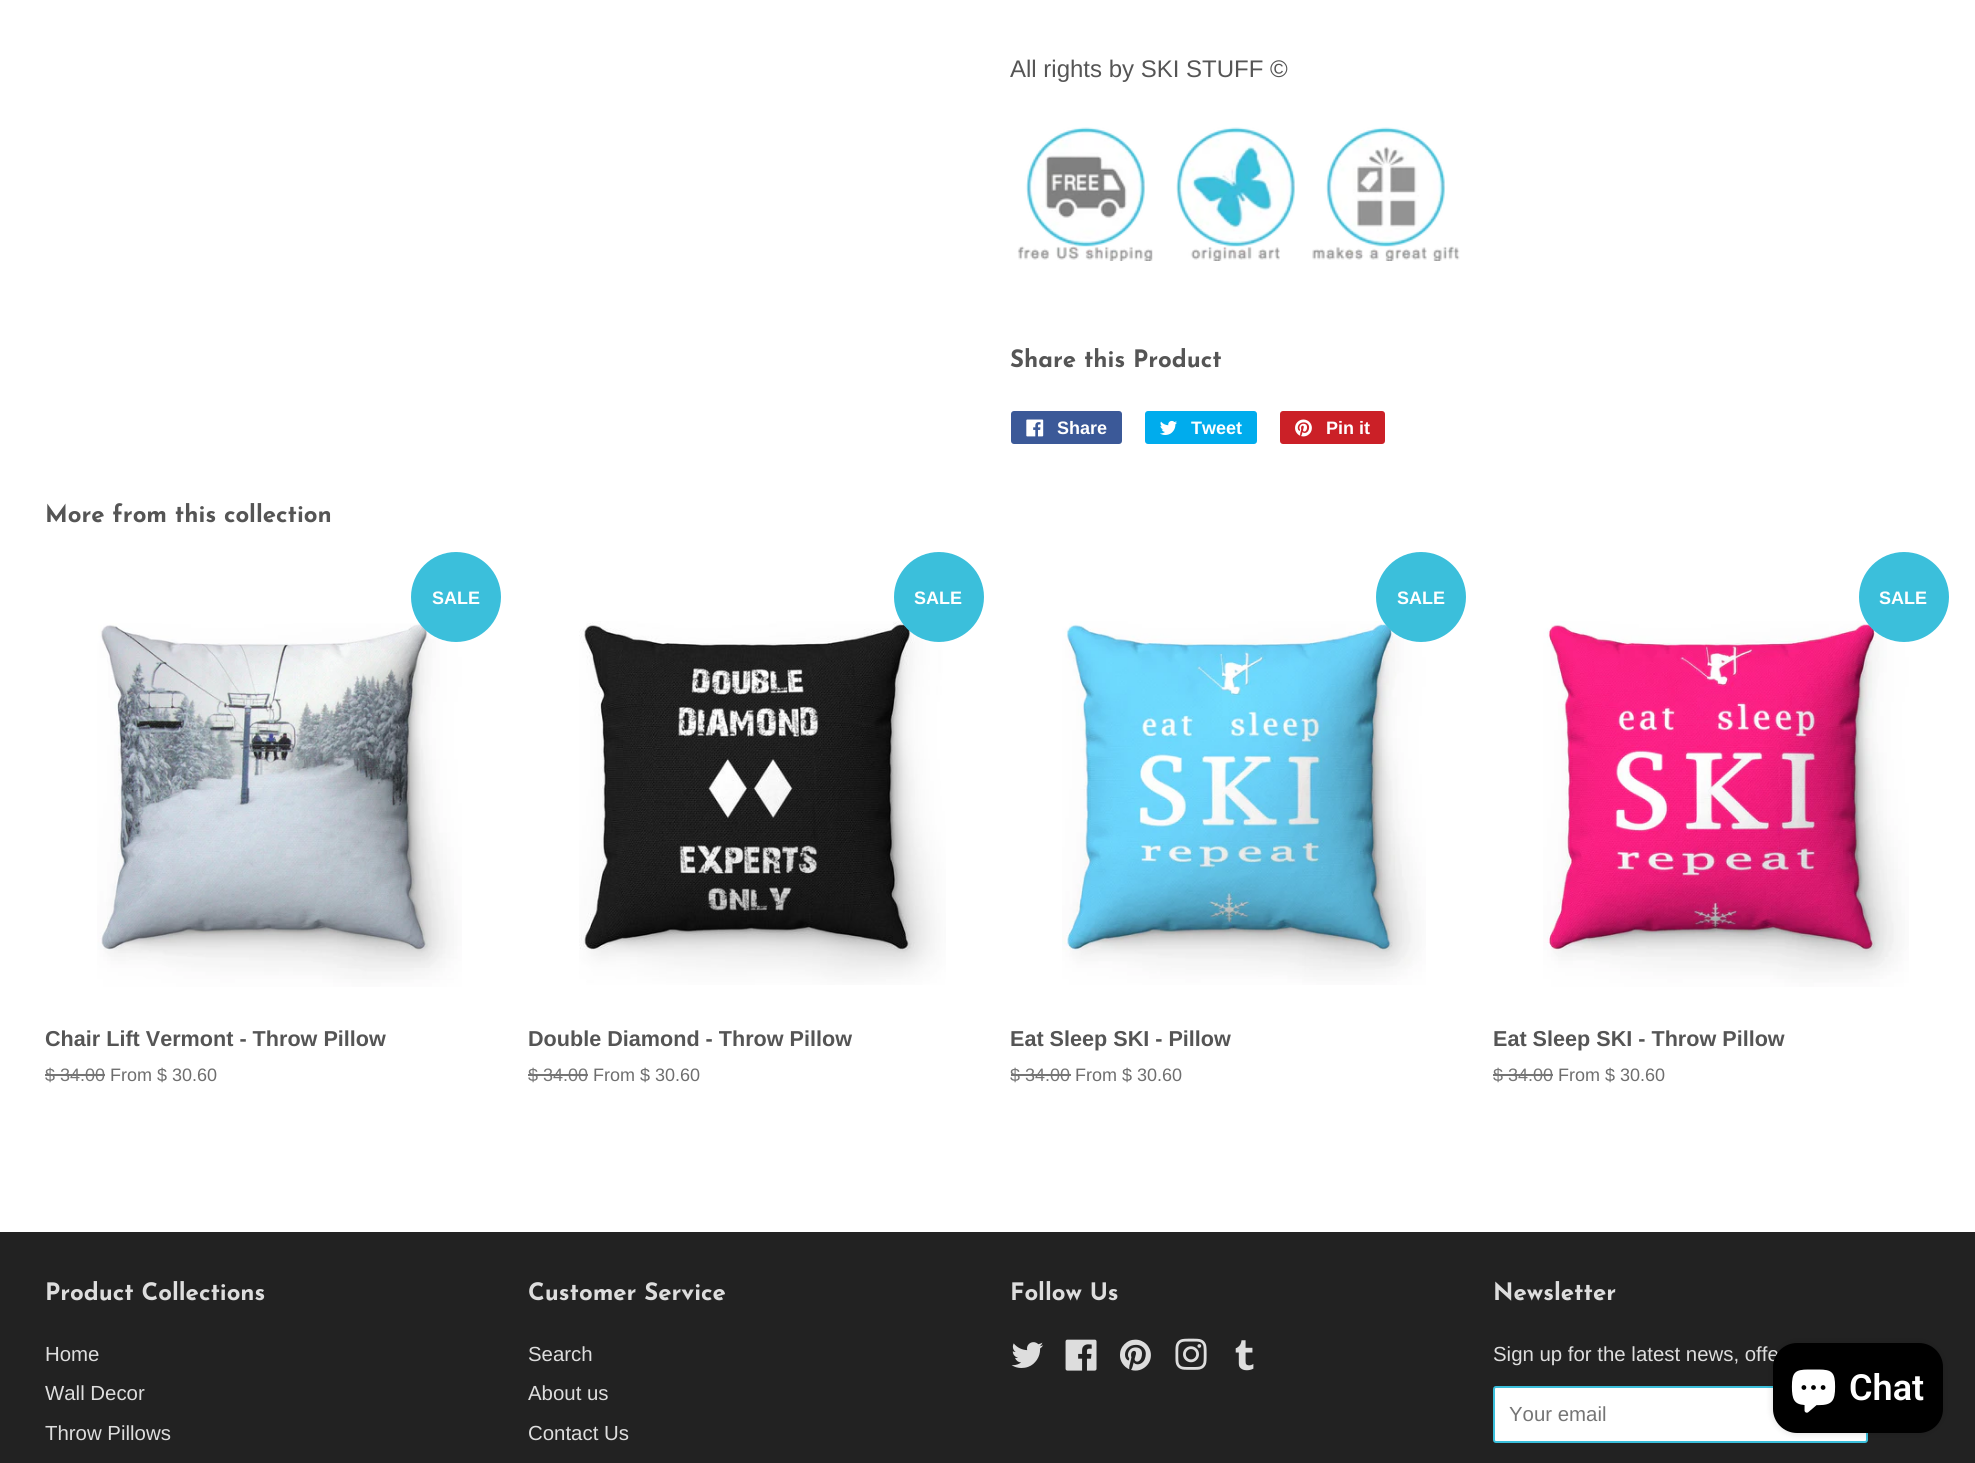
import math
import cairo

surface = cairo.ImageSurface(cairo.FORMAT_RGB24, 1975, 1463)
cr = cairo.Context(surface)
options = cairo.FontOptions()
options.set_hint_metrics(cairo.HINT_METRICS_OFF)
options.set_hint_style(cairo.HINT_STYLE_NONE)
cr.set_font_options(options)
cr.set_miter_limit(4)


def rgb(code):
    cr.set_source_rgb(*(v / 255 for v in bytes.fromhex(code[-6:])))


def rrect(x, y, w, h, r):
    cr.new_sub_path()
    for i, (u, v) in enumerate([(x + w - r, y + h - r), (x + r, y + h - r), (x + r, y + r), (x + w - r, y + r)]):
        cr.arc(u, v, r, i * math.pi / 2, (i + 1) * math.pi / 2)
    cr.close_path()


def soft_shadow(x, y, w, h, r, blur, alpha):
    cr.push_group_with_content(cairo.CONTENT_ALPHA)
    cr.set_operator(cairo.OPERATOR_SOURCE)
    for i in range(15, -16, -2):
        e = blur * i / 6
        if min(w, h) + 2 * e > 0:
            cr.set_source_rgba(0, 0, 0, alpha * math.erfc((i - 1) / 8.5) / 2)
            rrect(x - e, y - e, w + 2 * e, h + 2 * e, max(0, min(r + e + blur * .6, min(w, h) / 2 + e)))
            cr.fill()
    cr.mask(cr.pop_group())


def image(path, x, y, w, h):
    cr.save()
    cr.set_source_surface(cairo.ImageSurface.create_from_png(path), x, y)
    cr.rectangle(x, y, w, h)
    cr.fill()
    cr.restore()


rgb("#ffffff")
cr.paint()
image("img/1.png", 1017, 127, 136, 134)
image("img/2.png", 1176, 127, 119, 134)
image("img/3.png", 1312, 127, 148, 134)
rgb("#3b5998")
rrect(1011, 411, 111, 33, 3)
cr.fill()
image("img/4.png", 1026, 419, 18, 18)
rgb("#00aced")
rrect(1145, 411, 112, 33, 3)
cr.fill()
image("img/5.png", 1160, 420, 17, 15)
rgb("#cb2027")
rrect(1280, 411, 105, 33, 3)
cr.fill()
image("img/6.png", 1295, 419, 17, 18)
image("img/7.png", 97, 623, 365, 364)
rgb("#3bbfdb")
cr.arc(456, 597, 45, 0, 2 * math.pi)
cr.fill()
rgb("#757575")
cr.rectangle(45, 1074, 60, 2)
cr.fill()
image("img/8.png", 579, 621, 367, 364)
rgb("#3bbfdb")
cr.arc(939, 597, 45, 0, 2 * math.pi)
cr.fill()
rgb("#757575")
cr.rectangle(528, 1074, 60, 2)
cr.fill()
image("img/9.png", 1062, 621, 364, 364)
rgb("#3bbfdb")
cr.arc(1421, 597, 45, 0, 2 * math.pi)
cr.fill()
rgb("#757575")
cr.rectangle(1011, 1074, 60, 2)
cr.fill()
image("img/10.png", 1543, 621, 366, 366)
rgb("#3bbfdb")
cr.arc(1904, 597, 45, 0, 2 * math.pi)
cr.fill()
rgb("#757575")
cr.rectangle(1493, 1074, 60, 2)
cr.fill()
rgb("#222222")
cr.rectangle(0, 1232, 1975, 231)
cr.fill()
image("img/11.png", 1011, 1342, 33, 26)
image("img/12.png", 1065, 1339, 32, 32)
image("img/13.png", 1120, 1339, 31, 32)
image("img/14.png", 1175, 1338, 32, 32)
image("img/15.png", 1235, 1340, 19, 31)
rgb("#ffffff")
rrect(1494, 1387, 373, 55, 2)
cr.fill_preserve()
rgb("#3bbfdb")
cr.stroke()
rgb("#000000")
soft_shadow(1773, 1343, 170, 90, 24, 4, 0.15)
cr.select_font_face("Liberation Sans")
cr.set_font_size(24)
rgb("#555555")
cr.move_to(1010, 77)
cr.show_text("All rights by SKI STUFF ©")
cr.select_font_face("Josefin Sans Thin")
cr.move_to(1010, 367)
cr.show_text("Share this Product")
cr.select_font_face("Liberation Sans", cairo.FONT_SLANT_NORMAL, cairo.FONT_WEIGHT_BOLD)
cr.set_font_size(18)
rgb("#ffffff")
for x, y, s in [
    (1057, 434, "Share"),
    (1191, 434, "Tweet"),
    (1326, 434, "Pin it"),
]:
    cr.move_to(x, y)
    cr.show_text(s)
cr.select_font_face("Josefin Sans Thin")
cr.set_font_size(24)
rgb("#555555")
cr.move_to(45, 522)
cr.show_text("More from this collection")
cr.select_font_face("Liberation Sans", cairo.FONT_SLANT_NORMAL, cairo.FONT_WEIGHT_BOLD)
cr.set_font_size(18)
rgb("#ffffff")
cr.move_to(432, 604)
cr.show_text("SALE")
cr.set_font_size(21.6)
rgb("#555555")
cr.move_to(45, 1046)
cr.show_text("Chair Lift Vermont - Throw Pillow")
cr.select_font_face("Liberation Sans")
cr.set_font_size(18)
rgb("#757575")
cr.move_to(45, 1081)
cr.show_text("$ 34.00")
rgb("#6e6e6e")
cr.move_to(110, 1081)
cr.show_text("From $ 30.60")
cr.select_font_face("Liberation Sans", cairo.FONT_SLANT_NORMAL, cairo.FONT_WEIGHT_BOLD)
rgb("#ffffff")
cr.move_to(914, 604)
cr.show_text("SALE")
cr.set_font_size(21.6)
rgb("#555555")
cr.move_to(528, 1046)
cr.show_text("Double Diamond - Throw Pillow")
cr.select_font_face("Liberation Sans")
cr.set_font_size(18)
rgb("#757575")
cr.move_to(528, 1081)
cr.show_text("$ 34.00")
rgb("#6e6e6e")
cr.move_to(593, 1081)
cr.show_text("From $ 30.60")
cr.select_font_face("Liberation Sans", cairo.FONT_SLANT_NORMAL, cairo.FONT_WEIGHT_BOLD)
rgb("#ffffff")
cr.move_to(1397, 604)
cr.show_text("SALE")
cr.set_font_size(21.6)
rgb("#555555")
cr.move_to(1010, 1046)
cr.show_text("Eat Sleep SKI - Pillow")
cr.select_font_face("Liberation Sans")
cr.set_font_size(18)
rgb("#757575")
cr.move_to(1010, 1081)
cr.show_text("$ 34.00")
rgb("#6e6e6e")
cr.move_to(1075, 1081)
cr.show_text("From $ 30.60")
cr.select_font_face("Liberation Sans", cairo.FONT_SLANT_NORMAL, cairo.FONT_WEIGHT_BOLD)
rgb("#ffffff")
cr.move_to(1879, 604)
cr.show_text("SALE")
cr.set_font_size(21.6)
rgb("#555555")
cr.move_to(1493, 1046)
cr.show_text("Eat Sleep SKI - Throw Pillow")
cr.select_font_face("Liberation Sans")
cr.set_font_size(18)
rgb("#757575")
cr.move_to(1493, 1081)
cr.show_text("$ 34.00")
rgb("#6e6e6e")
cr.move_to(1558, 1081)
cr.show_text("From $ 30.60")
cr.select_font_face("Josefin Sans Thin")
cr.set_font_size(24)
rgb("#dddddd")
cr.move_to(45, 1300)
cr.show_text("Product Collections")
cr.select_font_face("Liberation Sans")
cr.set_font_size(20.4)
for x, y, s in [
    (45, 1361, "Home"),
    (45, 1400, "Wall Decor"),
    (45, 1440, "Throw Pillows"),
]:
    cr.move_to(x, y)
    cr.show_text(s)
cr.select_font_face("Josefin Sans Thin")
cr.set_font_size(24)
cr.move_to(528, 1300)
cr.show_text("Customer Service")
cr.select_font_face("Liberation Sans")
cr.set_font_size(20.4)
for x, y, s in [
    (528, 1361, "Search"),
    (528, 1400, "About us"),
    (528, 1440, "Contact Us"),
]:
    cr.move_to(x, y)
    cr.show_text(s)
cr.select_font_face("Josefin Sans Thin")
cr.set_font_size(24)
cr.move_to(1010, 1300)
cr.show_text("Follow Us")
cr.move_to(1493, 1300)
cr.show_text("Newsletter")
cr.select_font_face("Liberation Sans")
cr.set_font_size(20.4)
cr.move_to(1493, 1361)
cr.show_text("Sign up for the latest news, offe")
rgb("#757575")
cr.move_to(1509, 1421)
cr.show_text("Your email")
rgb("#000000")
rrect(1773, 1343, 170, 90, 24)
cr.fill()
image("img/16.png", 1791, 1369, 45, 44)
cr.select_font_face("Roboto SemiBold")
cr.set_font_size(36)
rgb("#ffffff")
cr.move_to(1849, 1400)
cr.show_text("Chat")
surface.write_to_png("page.png")
